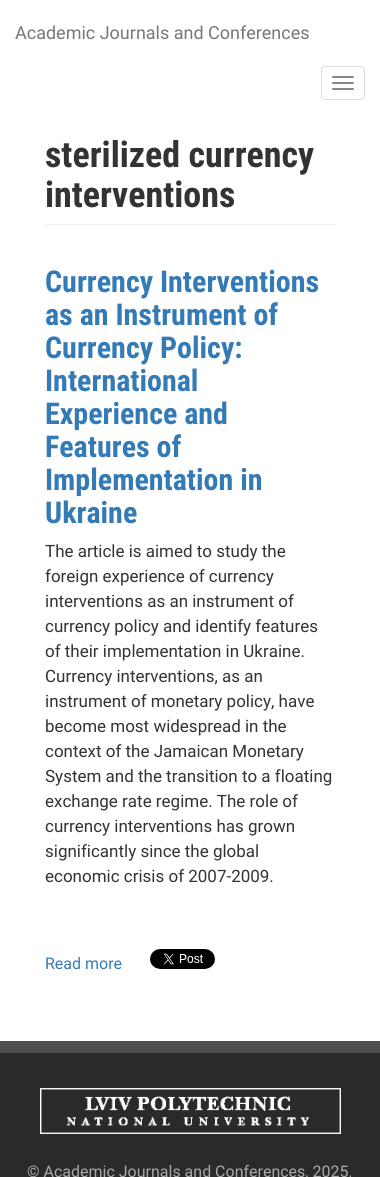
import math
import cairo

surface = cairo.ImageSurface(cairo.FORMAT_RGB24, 380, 1177)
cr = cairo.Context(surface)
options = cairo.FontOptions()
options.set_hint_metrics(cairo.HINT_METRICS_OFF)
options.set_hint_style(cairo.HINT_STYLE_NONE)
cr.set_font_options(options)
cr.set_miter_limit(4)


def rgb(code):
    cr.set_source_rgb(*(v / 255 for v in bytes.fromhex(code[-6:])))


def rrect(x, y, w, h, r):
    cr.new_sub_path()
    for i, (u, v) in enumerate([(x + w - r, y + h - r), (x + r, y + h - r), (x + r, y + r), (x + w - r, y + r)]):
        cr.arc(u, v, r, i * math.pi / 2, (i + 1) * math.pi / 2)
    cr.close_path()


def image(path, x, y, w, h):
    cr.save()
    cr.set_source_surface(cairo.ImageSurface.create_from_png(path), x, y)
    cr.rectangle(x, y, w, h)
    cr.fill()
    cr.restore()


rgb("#ffffff")
cr.paint()
rrect(321.5, 66.5, 43, 33, 3.5)
rgb("#dddddd")
cr.set_line_width(1)
cr.stroke()
rgb("#888888")
rrect(332, 76, 22, 2, 1)
cr.fill()
rrect(332, 82, 22, 2, 1)
cr.fill()
rrect(332, 88, 22, 2, 1)
cr.fill()
rgb("#eeeeee")
cr.rectangle(45, 224, 290, 1)
cr.fill()
image("img/1.png", 150, 949, 65, 20)
rgb("#2a2a2a")
cr.rectangle(0, 1053, 380, 124)
cr.fill()
rgb("#4e4e4e")
cr.rectangle(0, 1041, 380, 12)
cr.fill()
image("img/2.png", 40, 1088, 301, 46)
cr.select_font_face("Roboto")
cr.set_font_size(18)
rgb("#777777")
cr.move_to(15, 39)
cr.show_text("Academic Journals and Conferences")
cr.select_font_face("Roboto Condensed", cairo.FONT_SLANT_NORMAL, cairo.FONT_WEIGHT_BOLD)
cr.set_font_size(36)
rgb("#333333")
cr.move_to(45, 167)
cr.show_text("sterilized currency")
cr.move_to(45, 207)
cr.show_text("interventions")
cr.set_font_size(30)
rgb("#337ab7")
for x, y, s in [
    (45, 292, "Currency Interventions"),
    (45, 325, "as an Instrument of"),
    (45, 358, "Currency Policy:"),
    (45, 391, "International"),
    (45, 424, "Experience and"),
    (45, 457, "Features of"),
    (45, 490, "Implementation in"),
    (45, 523, "Ukraine"),
]:
    cr.move_to(x, y)
    cr.show_text(s)
cr.select_font_face("Roboto")
cr.set_font_size(17)
rgb("#333333")
for x, y, s in [
    (45, 557, "The article is aimed to study the"),
    (45, 582, "foreign experience of currency"),
    (45, 607, "interventions as an instrument of"),
    (45, 632, "currency policy and identify features"),
    (45, 657, "of their implementation in Ukraine."),
    (45, 682, "Currency interventions, as an"),
    (45, 707, "instrument of monetary policy, have"),
    (45, 732, "become most widespread in the"),
    (45, 757, "context of the Jamaican Monetary"),
    (45, 782, "System and the transition to a floating"),
    (45, 807, "exchange rate regime. The role of"),
    (45, 832, "currency interventions has grown"),
    (45, 857, "significantly since the global"),
    (45, 882, "economic crisis of 2007-2009."),
]:
    cr.move_to(x, y)
    cr.show_text(s)
cr.set_font_size(16)
rgb("#337ab7")
cr.move_to(45, 969)
cr.show_text("Read more")
rgb("#a9a9a9")
cr.move_to(27, 1177)
cr.show_text("© Academic Journals and Conferences, 2025.")
surface.write_to_png("page.png")
